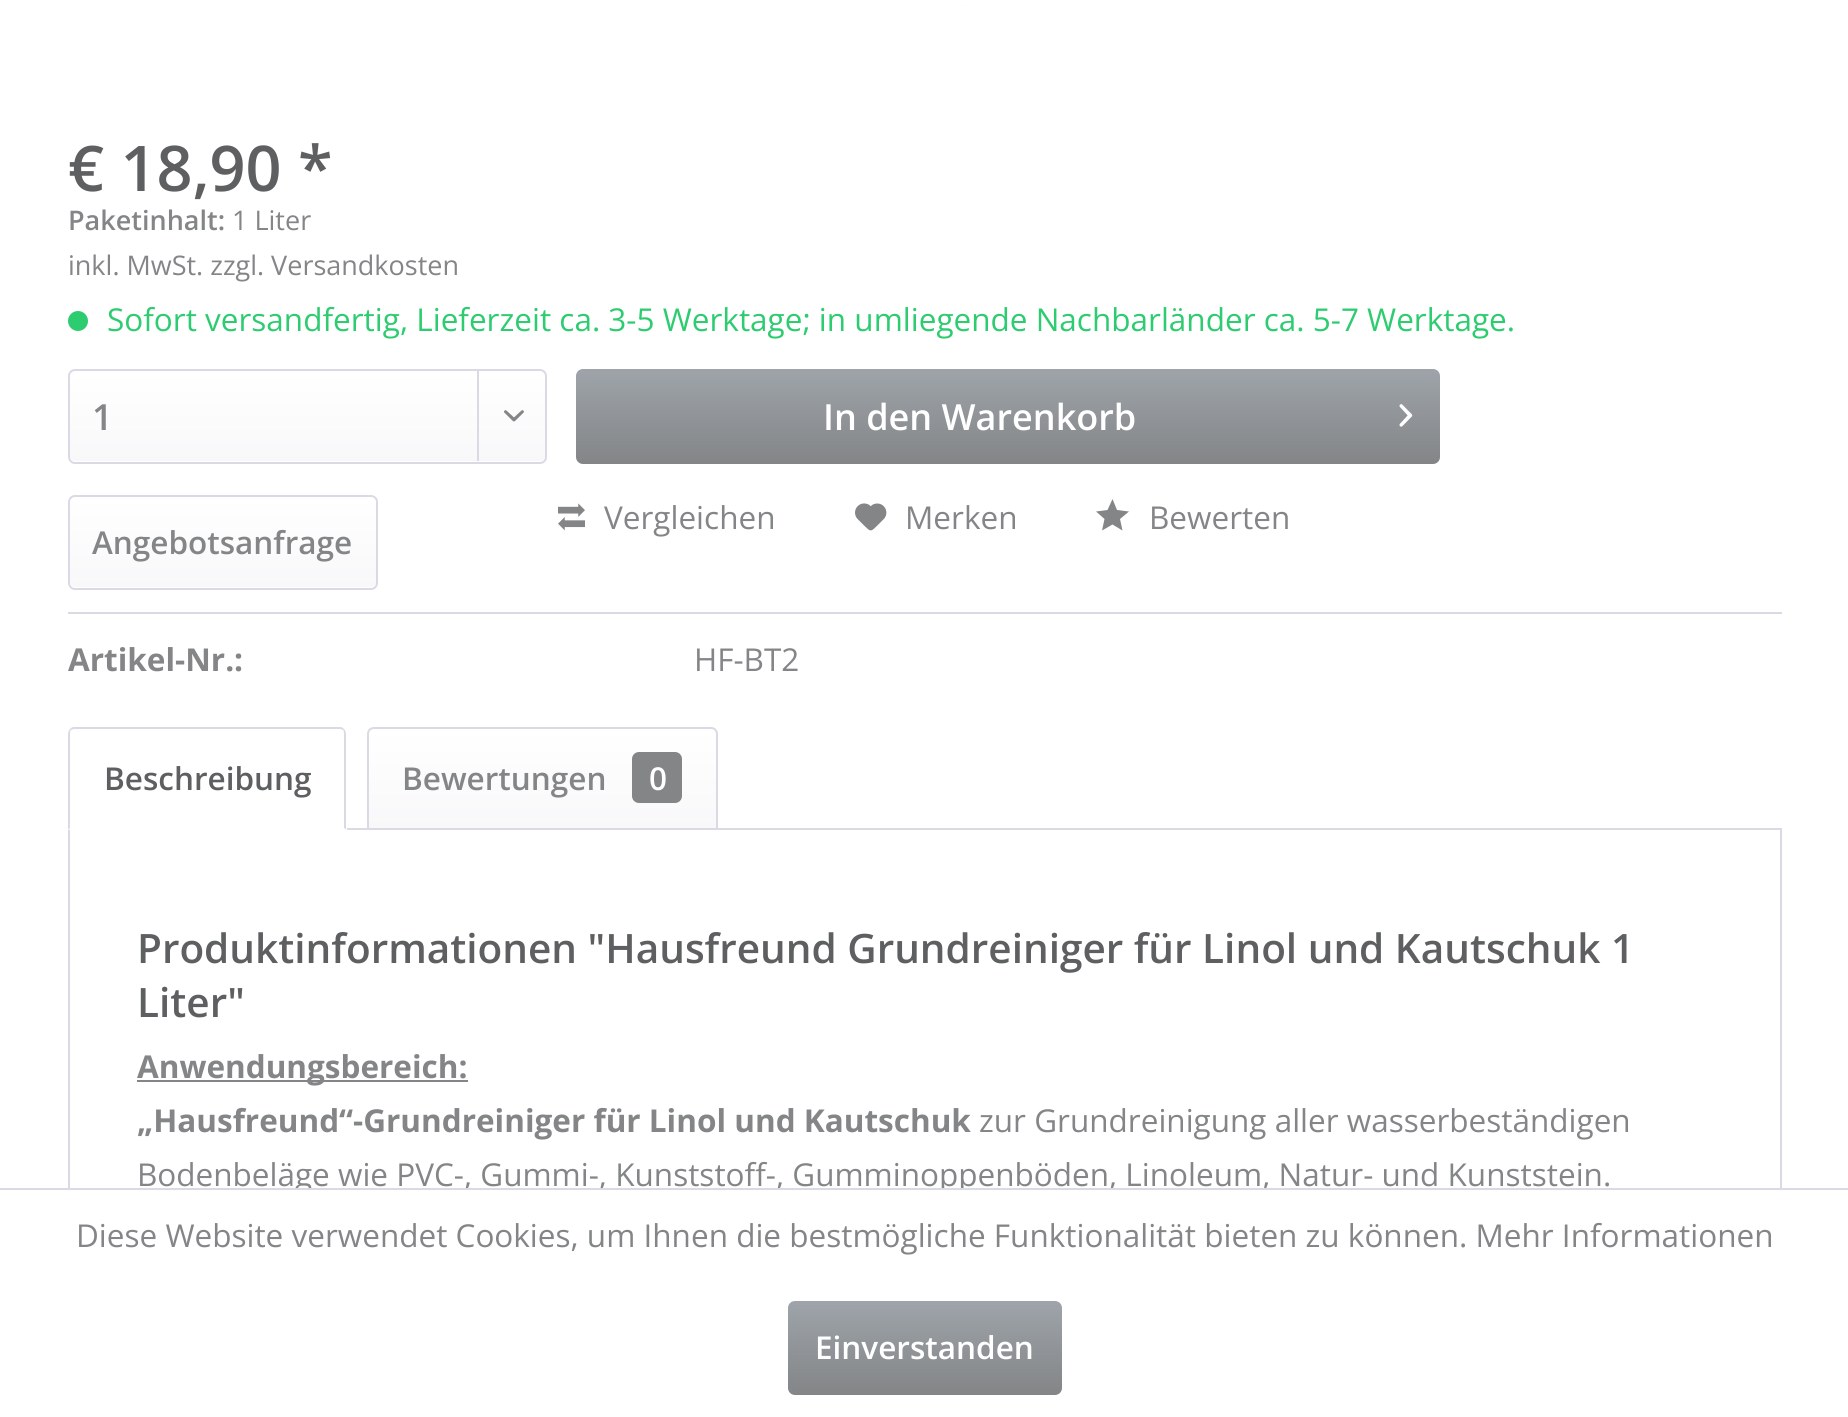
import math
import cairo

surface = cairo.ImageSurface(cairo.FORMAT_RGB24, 1848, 1417)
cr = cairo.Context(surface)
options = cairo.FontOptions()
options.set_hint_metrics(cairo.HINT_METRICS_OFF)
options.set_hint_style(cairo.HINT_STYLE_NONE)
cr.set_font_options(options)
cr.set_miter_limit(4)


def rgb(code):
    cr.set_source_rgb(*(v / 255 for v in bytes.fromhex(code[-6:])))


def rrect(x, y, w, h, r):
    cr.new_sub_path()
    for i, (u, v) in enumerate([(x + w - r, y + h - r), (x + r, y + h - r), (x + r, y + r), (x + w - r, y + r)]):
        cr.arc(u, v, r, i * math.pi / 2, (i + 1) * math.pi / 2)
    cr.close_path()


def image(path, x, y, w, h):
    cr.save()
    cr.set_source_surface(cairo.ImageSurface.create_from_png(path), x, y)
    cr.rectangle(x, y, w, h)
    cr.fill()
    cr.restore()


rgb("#ffffff")
cr.paint()
rgb("#fcfcfa")
cr.rectangle(964, 5, 4, 1)
cr.fill()
rgb("#2ecc71")
cr.arc(78, 321, 10, 0, 2 * math.pi)
cr.fill()
gradient = cairo.LinearGradient(307, 371, 307, 461)
gradient.add_color_stop_rgba(0, 1, 1, 1, 1)
gradient.add_color_stop_rgba(1, 0.973, 0.973, 0.98, 1)
cr.set_source(gradient)
rrect(70, 371, 475, 90, 5)
cr.fill()
rrect(69, 370, 477, 93, 6)
rgb("#dadae5")
cr.stroke()
cr.rectangle(477, 371, 2, 90)
cr.fill()
image("img/1.png", 504, 410, 20, 12)
gradient = cairo.LinearGradient(1008, 369, 1008, 464)
gradient.add_color_stop_rgba(0, 0.62, 0.643, 0.667, 1)
gradient.add_color_stop_rgba(1, 0.514, 0.522, 0.529, 1)
cr.set_source(gradient)
rrect(576, 369, 864, 95, 7)
cr.fill()
image("img/2.png", 1399, 404, 14, 23)
rgb("#dadae5")
cr.rectangle(68, 612, 1714, 2)
cr.fill()
image("img/3.png", 558, 503, 27, 28)
image("img/4.png", 855, 503, 32, 28)
rgb("#838587")
cr.new_path()
cr.move_to(1112.5, 499)
cr.line_to(1107.5, 510)
cr.line_to(1096, 511.5)
cr.line_to(1104.5, 519)
cr.line_to(1102, 530.5)
cr.line_to(1112.5, 524.5)
cr.line_to(1122.5, 530.5)
cr.line_to(1120, 519)
cr.line_to(1129, 511.5)
cr.line_to(1117, 510)
cr.close_path()
cr.fill()
gradient = cairo.LinearGradient(223, 497, 223, 587)
gradient.add_color_stop_rgba(0, 1, 1, 1, 1)
gradient.add_color_stop_rgba(1, 0.973, 0.973, 0.98, 1)
cr.set_source(gradient)
rrect(70, 497, 306, 90, 5)
cr.fill()
rrect(69, 496, 308, 93, 6)
rgb("#dadae5")
cr.stroke()
cr.rectangle(69, 829, 1712, 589)
cr.stroke()
rgb("#ffffff")
cr.new_path()
cr.move_to(75, 727)
cr.line_to(340, 727)
cr.curve_to(344, 727, 347, 730, 347, 734)
cr.line_to(347, 830)
cr.line_to(68, 830)
cr.line_to(68, 734)
cr.curve_to(68, 730, 71, 727, 75, 727)
cr.close_path()
cr.fill()
rgb("#dadae5")
cr.new_path()
cr.move_to(74, 727)
cr.curve_to(72, 727, 71, 728, 70, 729)
cr.line_to(71, 730)
cr.curve_to(72, 730, 73, 729, 74, 729)
cr.line_to(340, 729)
cr.curve_to(341, 729, 342, 730, 343, 730)
cr.line_to(344, 729)
cr.curve_to(343, 728, 342, 727, 340, 727)
cr.close_path()
cr.fill()
cr.new_path()
cr.move_to(346, 830)
cr.line_to(346, 734)
cr.curve_to(346, 732, 345, 730, 344, 729)
cr.line_to(343, 730)
cr.curve_to(344, 731, 344, 733, 344, 734)
cr.line_to(344, 828)
cr.close_path()
cr.fill()
rgb("#ffffff")
cr.new_path()
cr.move_to(346, 830)
cr.line_to(68, 830)
cr.line_to(70, 828)
cr.line_to(344, 828)
cr.close_path()
cr.fill()
rgb("#dadae5")
cr.new_path()
cr.move_to(70, 729)
cr.curve_to(69, 730, 68, 732, 68, 734)
cr.line_to(68, 830)
cr.line_to(70, 828)
cr.line_to(70, 734)
cr.curve_to(70, 733, 70, 731, 71, 730)
cr.close_path()
cr.fill()
gradient = cairo.LinearGradient(542, 729, 542, 828)
gradient.add_color_stop_rgba(0, 1, 1, 1, 1)
gradient.add_color_stop_rgba(1, 0.973, 0.973, 0.98, 1)
cr.set_source(gradient)
cr.new_path()
cr.move_to(374, 729)
cr.line_to(711, 729)
cr.curve_to(714, 729, 716, 731, 716, 734)
cr.line_to(716, 828)
cr.line_to(369, 828)
cr.line_to(369, 734)
cr.curve_to(369, 731, 371, 729, 374, 729)
cr.close_path()
cr.fill()
cr.new_path()
cr.move_to(374, 728)
cr.line_to(711, 728)
cr.curve_to(714.5, 728, 717, 730.5, 717, 734)
cr.line_to(717, 829)
cr.line_to(368, 829)
cr.line_to(368, 734)
cr.curve_to(368, 730.5, 370.5, 728, 374, 728)
cr.close_path()
rgb("#dadae5")
cr.stroke()
rgb("#838587")
rrect(632, 752, 50, 51, 7)
cr.fill()
cr.rectangle(137, 1080, 331, 2)
cr.fill()
cr.select_font_face("Open Sans SemiBold")
cr.set_font_size(63)
rgb("#5d5f60")
cr.move_to(68, 191)
cr.show_text("€ 18,90 *")
cr.set_font_size(27)
rgb("#838587")
cr.move_to(68, 230)
cr.show_text("Paketinhalt:")
cr.select_font_face("Open Sans")
cr.move_to(232, 230)
cr.show_text("1 Liter")
cr.move_to(68, 275)
cr.show_text("inkl. MwSt. zzgl. Versandkosten")
cr.set_font_size(31.5)
rgb("#2ecc71")
cr.move_to(107, 331)
cr.show_text("Sofort versandfertig, Lieferzeit ca. 3-5 Werktage; in umliegende Nachbarländer ca. 5-7 Werktage.")
cr.select_font_face("Open Sans SemiBold")
cr.set_font_size(36)
rgb("#838587")
cr.move_to(92, 430)
cr.show_text("1")
rgb("#ffffff")
cr.move_to(823, 430)
cr.show_text("In den Warenkorb")
cr.select_font_face("Open Sans")
cr.set_font_size(31.5)
rgb("#838587")
for x, y, s in [
    (604, 529, "Vergleichen"),
    (905, 529, "Merken"),
    (1149, 529, "Bewerten"),
]:
    cr.move_to(x, y)
    cr.show_text(s)
cr.select_font_face("Open Sans SemiBold")
cr.move_to(92, 554)
cr.show_text("Angebotsanfrage")
cr.select_font_face("Open Sans", cairo.FONT_SLANT_NORMAL, cairo.FONT_WEIGHT_BOLD)
cr.move_to(68, 671)
cr.show_text("Artikel-Nr.:")
cr.select_font_face("Open Sans")
cr.move_to(694, 671)
cr.show_text("HF-BT2")
cr.select_font_face("Open Sans SemiBold")
rgb("#5d5f60")
cr.move_to(104, 790)
cr.show_text("Beschreibung")
rgb("#838587")
cr.move_to(402, 790)
cr.show_text("Bewertungen")
rgb("#ffffff")
cr.move_to(649, 790)
cr.show_text("0")
cr.set_font_size(40.5)
rgb("#5d5f60")
cr.move_to(137, 963)
cr.show_text("Produktinformationen \"Hausfreund Grundreiniger für Linol und Kautschuk 1")
cr.move_to(137, 1017)
cr.show_text("Liter\"")
cr.select_font_face("Open Sans", cairo.FONT_SLANT_NORMAL, cairo.FONT_WEIGHT_BOLD)
cr.set_font_size(31.5)
rgb("#838587")
cr.move_to(137, 1078)
cr.show_text("Anwendungsbereich:")
cr.move_to(137, 1132)
cr.show_text("„Hausfreund“-Grundreiniger für Linol und Kautschuk")
cr.select_font_face("Open Sans")
cr.move_to(979, 1132)
cr.show_text("zur Grundreinigung aller wasserbeständigen")
cr.move_to(137, 1186)
cr.show_text("Bodenbeläge wie PVC-, Gummi-, Kunststoff-, Gumminoppenböden, Linoleum, Natur- und Kunststein.")
rgb("#ffffff")
cr.rectangle(68, 1190, 1714, 227)
cr.fill()
rgb("#dadae5")
cr.rectangle(0, 1188, 1848, 2)
cr.fill()
rgb("#838587")
cr.move_to(76, 1247)
cr.show_text("Diese Website verwendet Cookies, um Ihnen die bestmögliche Funktionalität bieten zu können. Mehr Informationen")
gradient = cairo.LinearGradient(925, 1301, 925, 1395)
gradient.add_color_stop_rgba(0, 0.62, 0.643, 0.667, 1)
gradient.add_color_stop_rgba(1, 0.514, 0.522, 0.529, 1)
cr.set_source(gradient)
rrect(788, 1301, 274, 94, 7)
cr.fill()
cr.select_font_face("Open Sans SemiBold")
rgb("#ffffff")
cr.move_to(815, 1359)
cr.show_text("Einverstanden")
surface.write_to_png("page.png")
